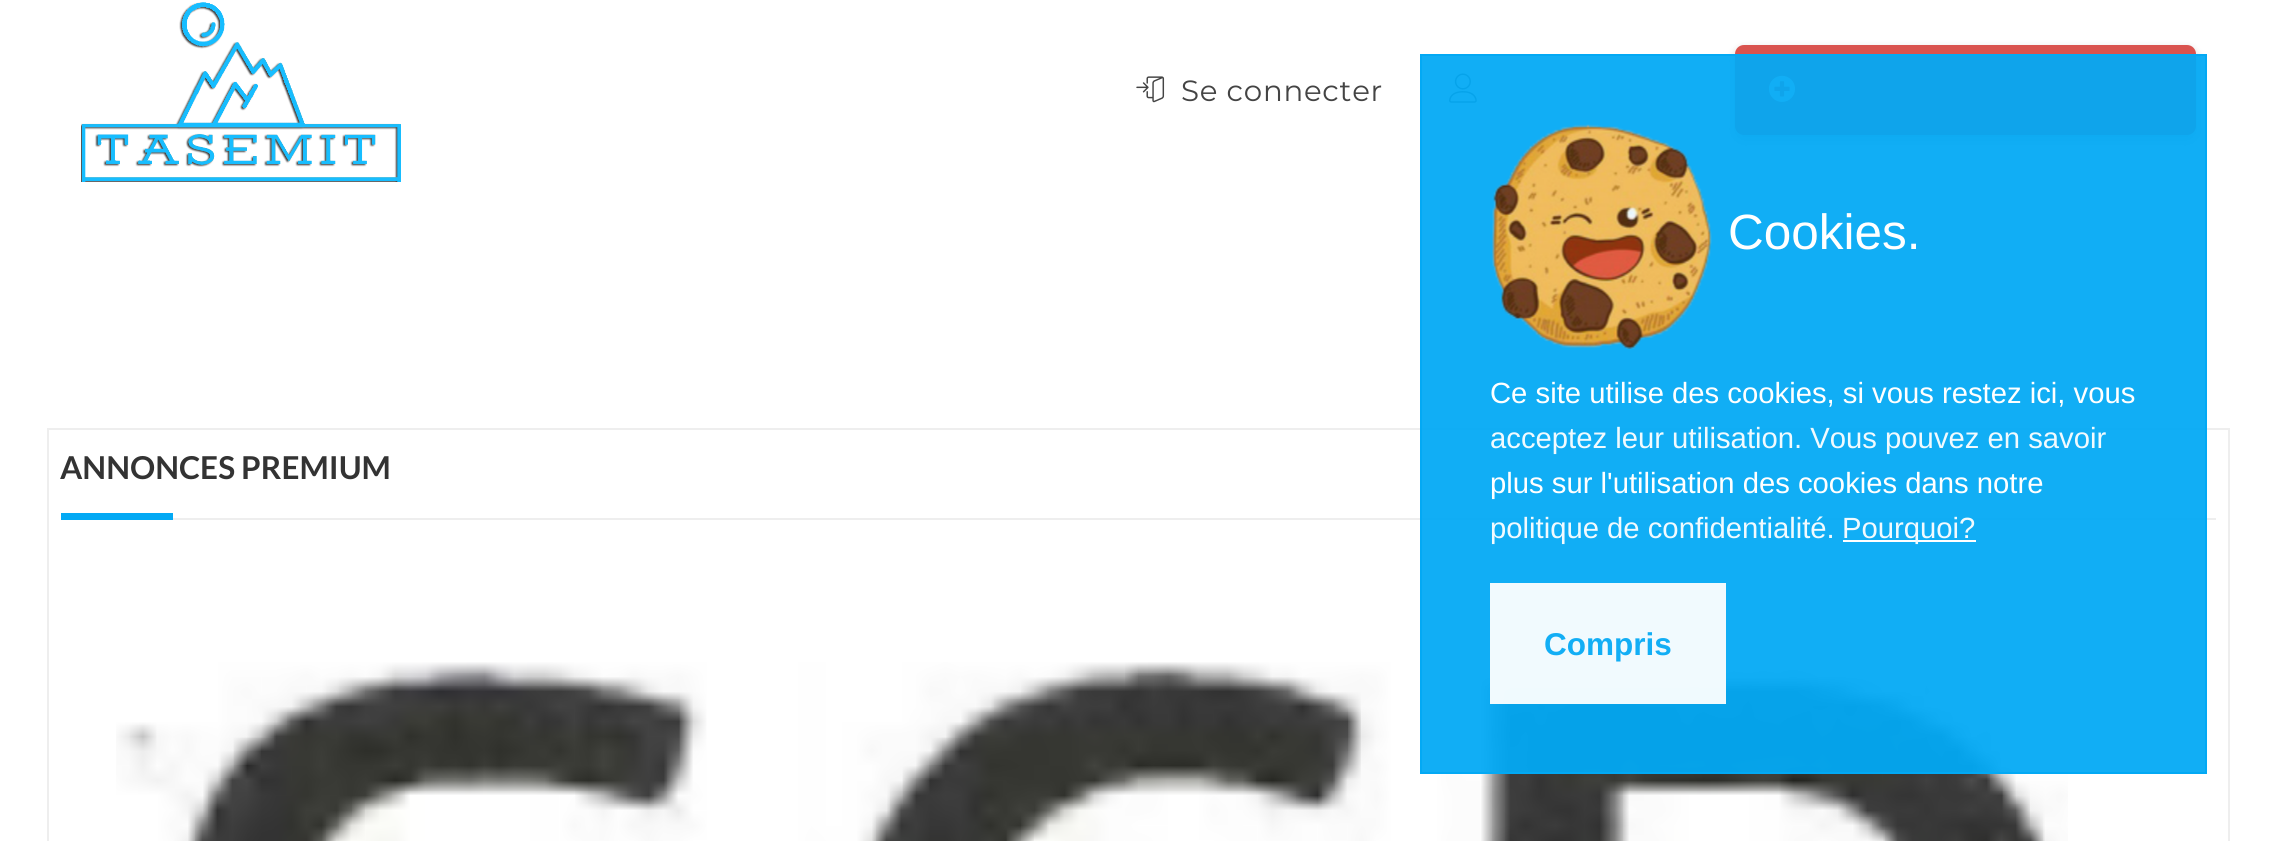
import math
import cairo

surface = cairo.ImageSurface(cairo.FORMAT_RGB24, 2273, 841)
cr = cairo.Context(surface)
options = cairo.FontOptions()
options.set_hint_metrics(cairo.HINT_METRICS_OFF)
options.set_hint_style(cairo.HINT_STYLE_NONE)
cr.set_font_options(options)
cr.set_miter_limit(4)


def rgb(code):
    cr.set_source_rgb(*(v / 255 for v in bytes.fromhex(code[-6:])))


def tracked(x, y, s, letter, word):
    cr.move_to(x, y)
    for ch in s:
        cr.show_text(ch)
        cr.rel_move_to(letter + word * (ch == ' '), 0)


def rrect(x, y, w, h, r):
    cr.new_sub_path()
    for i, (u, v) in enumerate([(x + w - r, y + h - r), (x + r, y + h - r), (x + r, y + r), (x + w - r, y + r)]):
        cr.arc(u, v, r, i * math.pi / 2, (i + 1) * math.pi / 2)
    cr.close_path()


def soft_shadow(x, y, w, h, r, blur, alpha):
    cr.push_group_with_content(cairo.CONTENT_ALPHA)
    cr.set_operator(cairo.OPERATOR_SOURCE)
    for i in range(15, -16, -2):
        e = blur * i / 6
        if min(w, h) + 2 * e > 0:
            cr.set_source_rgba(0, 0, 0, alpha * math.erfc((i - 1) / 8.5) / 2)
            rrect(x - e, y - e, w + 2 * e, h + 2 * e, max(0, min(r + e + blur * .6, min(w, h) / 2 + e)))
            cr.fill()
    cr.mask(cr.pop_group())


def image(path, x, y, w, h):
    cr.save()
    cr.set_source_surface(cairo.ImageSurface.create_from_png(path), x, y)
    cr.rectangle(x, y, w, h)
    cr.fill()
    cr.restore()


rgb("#ffffff")
cr.paint()
image("img/1.png", 81, 2, 320, 180)
image("img/2.png", 1136, 76, 29, 27)
image("img/3.png", 1449, 73, 28, 30)
rgb("#000000")
soft_shadow(1735, 50, 461, 90, 9, 5.5, 0.15)
soft_shadow(1735, 50, 461, 90, 9, 4.5, 0.1)
rgb("#d9534f")
rrect(1735, 45, 461, 90, 9)
cr.fill()
image("img/4.png", 1768, 75, 28, 27)
cr.rectangle(48, 429, 2181, 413)
rgb("#eeeeee")
cr.stroke()
cr.rectangle(173, 518, 2043, 2)
cr.fill()
rgb("#03a9f4")
cr.rectangle(61, 513, 112, 7)
cr.fill()
image("img/5.png", 116, 662, 1952, 179)
cr.set_source_rgba(0.012, 0.663, 0.957, 0.94)
cr.rectangle(1420, 54, 787, 720)
cr.fill()
cr.rectangle(1421, 55, 785, 718)
cr.stroke()
image("img/6.png", 1492, 124, 220, 225)
rgb("#ffffff")
cr.rectangle(1843, 540, 133, 2)
cr.fill()
cr.set_source_rgba(1, 1, 1, 0.94)
cr.rectangle(1490, 583, 236, 121)
cr.fill()
cr.select_font_face("Montserrat Thin")
cr.set_font_size(29.25)
rgb("#444444")
tracked(1181, 101, "Se connecter", 0.75, 0)
cr.select_font_face("Lato", cairo.FONT_SLANT_NORMAL, cairo.FONT_WEIGHT_BOLD)
cr.set_font_size(31.5)
rgb("#333333")
cr.move_to(60, 479)
cr.show_text("ANNONCES PREMIUM")
cr.select_font_face("Liberation Sans")
cr.set_font_size(49.5)
rgb("#ffffff")
cr.move_to(1728, 249)
cr.show_text("Cookies.")
cr.set_font_size(29.25)
cr.move_to(1490, 403)
cr.show_text("Ce site utilise des cookies, si vous restez ici, vous")
rgb("#f1fafe")
cr.move_to(1490, 448)
cr.show_text("acceptez leur utilisation. Vous pouvez en savoir")
rgb("#ffffff")
cr.move_to(1490, 493)
cr.show_text("plus sur l'utilisation des cookies dans notre")
rgb("#f1fafe")
cr.move_to(1490, 538)
cr.show_text("politique de confidentialité.")
cr.move_to(1842, 538)
cr.show_text("Pourquoi?")
cr.select_font_face("Liberation Sans", cairo.FONT_SLANT_NORMAL, cairo.FONT_WEIGHT_BOLD)
cr.set_font_size(31.5)
rgb("#12aef5")
cr.move_to(1544, 655)
cr.show_text("Compris")
surface.write_to_png("page.png")
